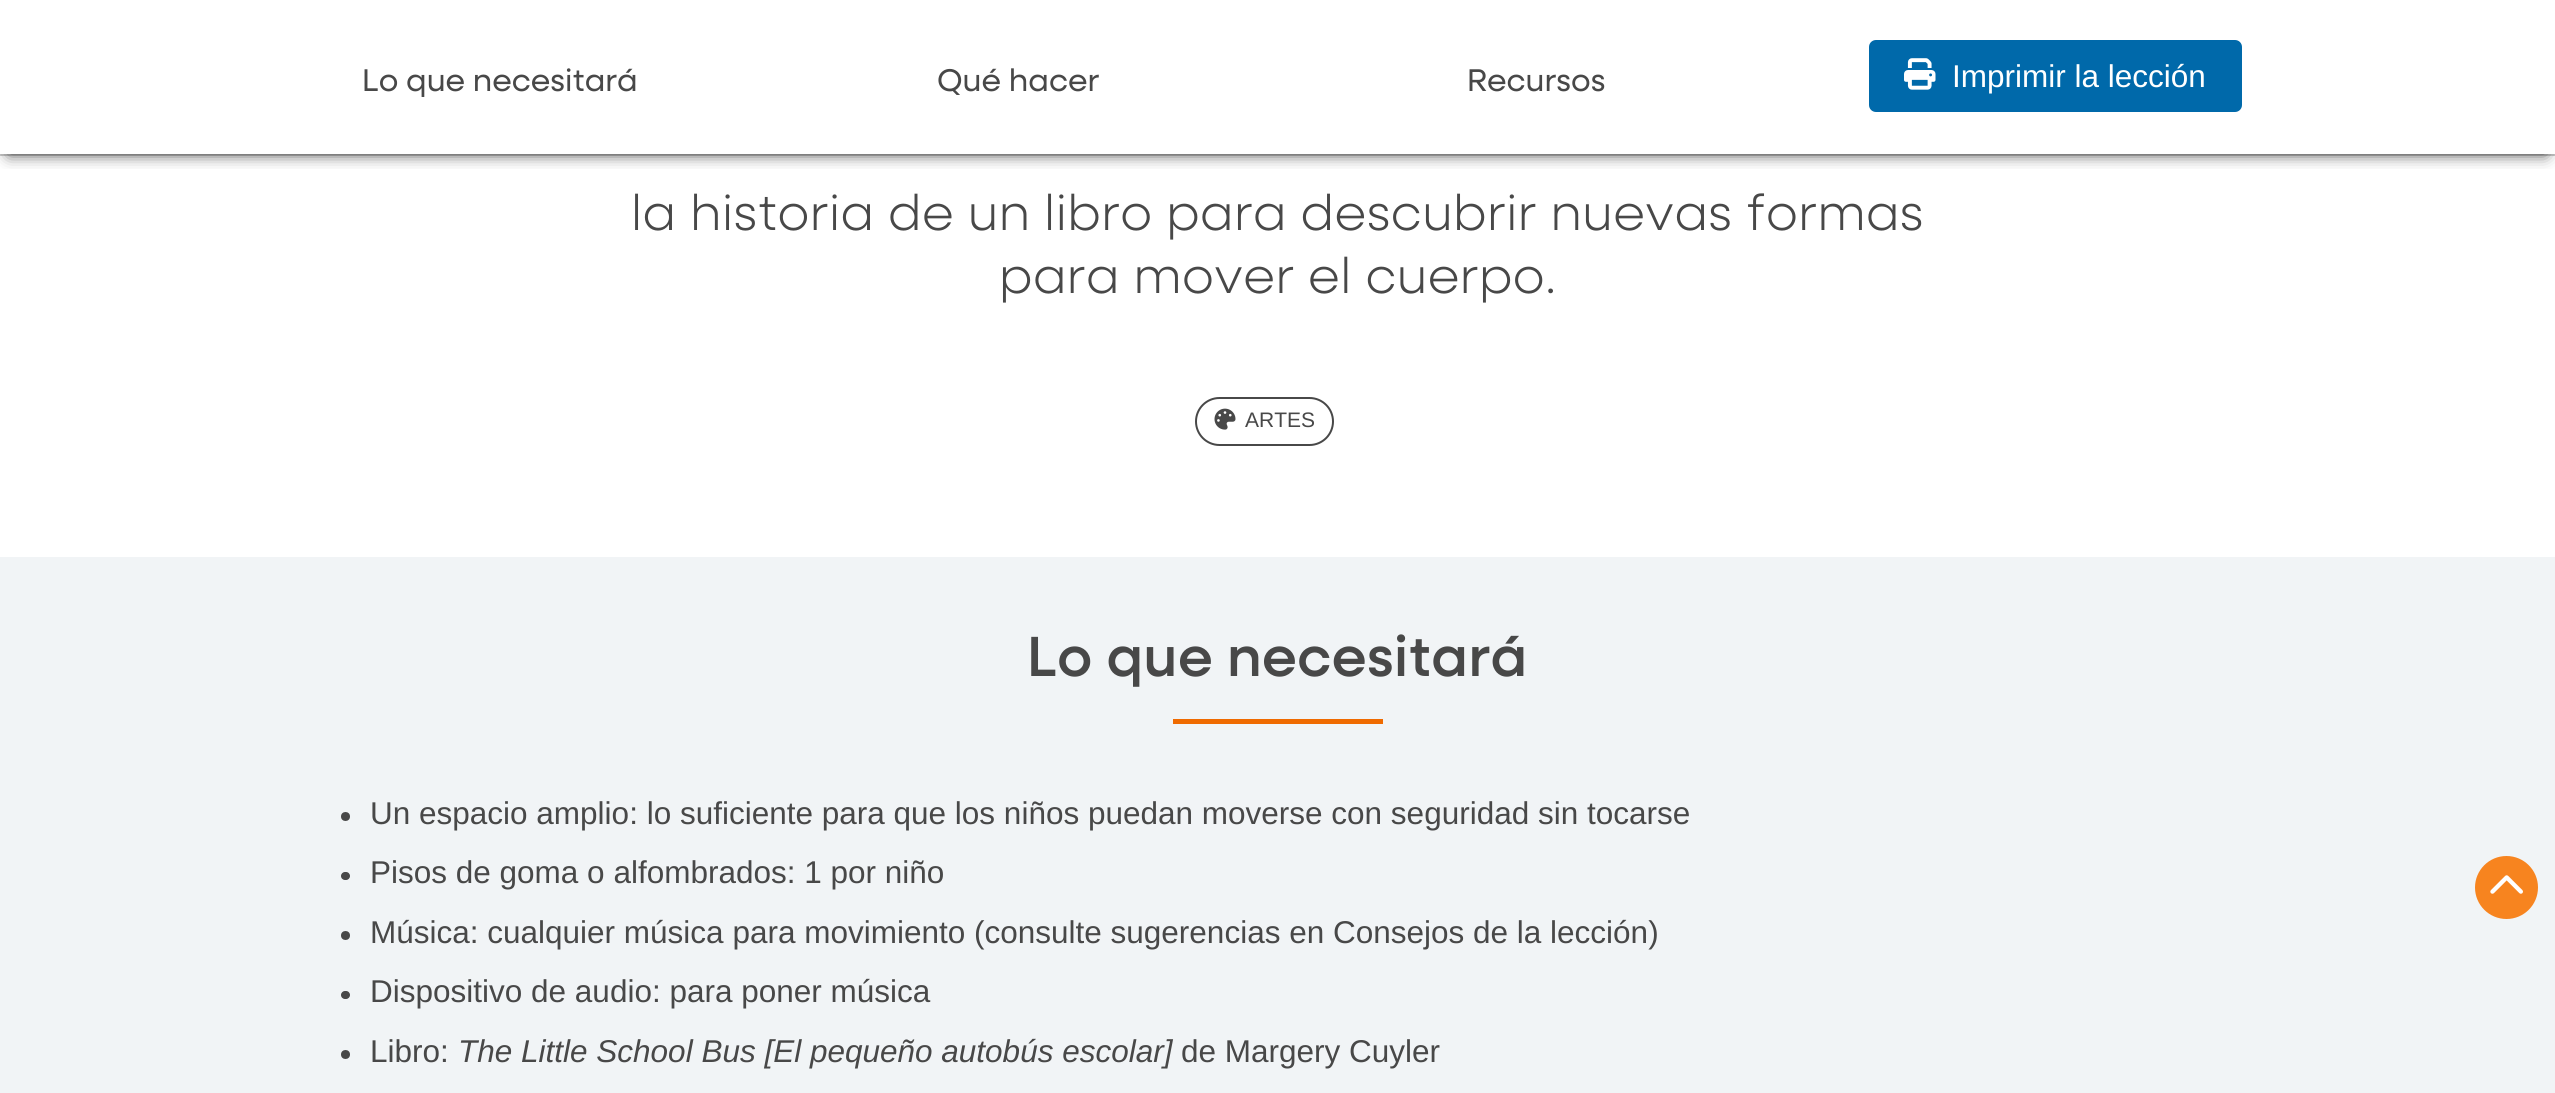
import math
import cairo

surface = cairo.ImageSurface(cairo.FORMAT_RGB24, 2555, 1093)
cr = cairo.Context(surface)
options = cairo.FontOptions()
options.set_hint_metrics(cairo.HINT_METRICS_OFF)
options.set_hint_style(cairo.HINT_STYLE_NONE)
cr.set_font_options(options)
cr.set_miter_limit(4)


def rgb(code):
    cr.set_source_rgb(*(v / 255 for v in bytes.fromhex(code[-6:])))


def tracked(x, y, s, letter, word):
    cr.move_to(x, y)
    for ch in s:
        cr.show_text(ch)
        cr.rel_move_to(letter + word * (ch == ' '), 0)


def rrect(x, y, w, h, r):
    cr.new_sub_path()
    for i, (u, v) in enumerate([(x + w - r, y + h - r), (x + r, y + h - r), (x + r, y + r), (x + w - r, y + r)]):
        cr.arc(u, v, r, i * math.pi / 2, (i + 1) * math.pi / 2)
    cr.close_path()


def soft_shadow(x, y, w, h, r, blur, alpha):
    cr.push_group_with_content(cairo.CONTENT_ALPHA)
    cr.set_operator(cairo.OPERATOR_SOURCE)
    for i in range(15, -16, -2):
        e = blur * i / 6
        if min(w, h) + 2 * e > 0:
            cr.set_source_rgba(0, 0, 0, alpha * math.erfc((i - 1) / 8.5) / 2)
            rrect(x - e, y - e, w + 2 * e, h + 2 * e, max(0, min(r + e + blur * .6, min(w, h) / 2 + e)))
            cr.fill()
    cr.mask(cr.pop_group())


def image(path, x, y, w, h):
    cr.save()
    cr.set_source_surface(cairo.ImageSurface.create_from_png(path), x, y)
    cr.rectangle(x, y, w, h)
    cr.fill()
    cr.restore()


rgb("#ffffff")
cr.paint()
rgb("#cccccc")
cr.rectangle(0, 154, 2555, 2)
cr.fill()
cr.save()
cr.rectangle(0, 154, 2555, 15)
cr.clip()
rgb("#000000")
soft_shadow(9, 18, 2537, 136, 0, 8, 0.75)
cr.restore()
rgb("#0069aa")
rrect(1869, 40, 373, 72, 7)
cr.fill()
image("img/1.png", 1904, 58, 32, 32)
rrect(1196, 398, 137, 47, 23.5)
rgb("#484848")
cr.stroke()
image("img/2.png", 1214, 408, 22, 22)
rgb("#f1f4f6")
cr.rectangle(0, 557, 2555, 536)
cr.fill()
rgb("#ef6a00")
cr.rectangle(1173, 719, 210, 5)
cr.fill()
rgb("#484848")
cr.arc(345.5, 816.5, 4.5, 0, 2 * math.pi)
cr.fill()
rrect(341, 872, 9, 8, 4)
cr.fill()
cr.arc(345.5, 935.5, 4.5, 0, 2 * math.pi)
cr.fill()
rrect(341, 991, 9, 8, 4)
cr.fill()
cr.arc(345.5, 1054.5, 4.5, 0, 2 * math.pi)
cr.fill()
rgb("#f7841f")
cr.arc(2506.5, 887.5, 31.5, 0, 2 * math.pi)
cr.fill()
image("img/3.png", 2490, 875, 33, 19)
cr.select_font_face("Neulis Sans")
cr.set_font_size(31.5)
rgb("#484848")
for x, y, s in [
    (362, 91, "Lo que necesitará"),
    (937, 91, "Qué hacer"),
    (1467, 91, "Recursos"),
]:
    cr.move_to(x, y)
    cr.show_text(s)
cr.select_font_face("Liberation Sans")
rgb("#ffffff")
cr.move_to(1952, 87)
cr.show_text("Imprimir la lección")
cr.select_font_face("Neulis Sans Light")
cr.set_font_size(50.45)
rgb("#484848")
tracked(631, 230, "la historia de un libro para descubrir nuevas formas", 0.45, 0)
tracked(999, 293, "para mover el cuerpo.", 0.45, 0)
cr.select_font_face("Liberation Sans")
cr.set_font_size(21)
cr.move_to(1245, 427)
cr.show_text("ARTES")
cr.select_font_face("Neulis Sans Medium")
cr.set_font_size(56.75)
tracked(1027, 676, "Lo que necesitará", 0.45, 0)
cr.select_font_face("Liberation Sans")
cr.set_font_size(31.5)
for x, y, s in [
    (370, 824, "Un espacio amplio: lo suficiente para que los niños puedan moverse con seguridad sin tocarse"),
    (370, 883, "Pisos de goma o alfombrados: 1 por niño"),
    (370, 943, "Música: cualquier música para movimiento (consulte sugerencias en Consejos de la lección)"),
    (370, 1002, "Dispositivo de audio: para poner música"),
    (370, 1062, "Libro:"),
]:
    cr.move_to(x, y)
    cr.show_text(s)
cr.select_font_face("Liberation Sans", cairo.FONT_SLANT_ITALIC)
cr.move_to(458, 1062)
cr.show_text("The Little School Bus [El pequeño autobús escolar]")
cr.select_font_face("Liberation Sans")
cr.move_to(1181, 1062)
cr.show_text("de Margery Cuyler")
surface.write_to_png("page.png")
